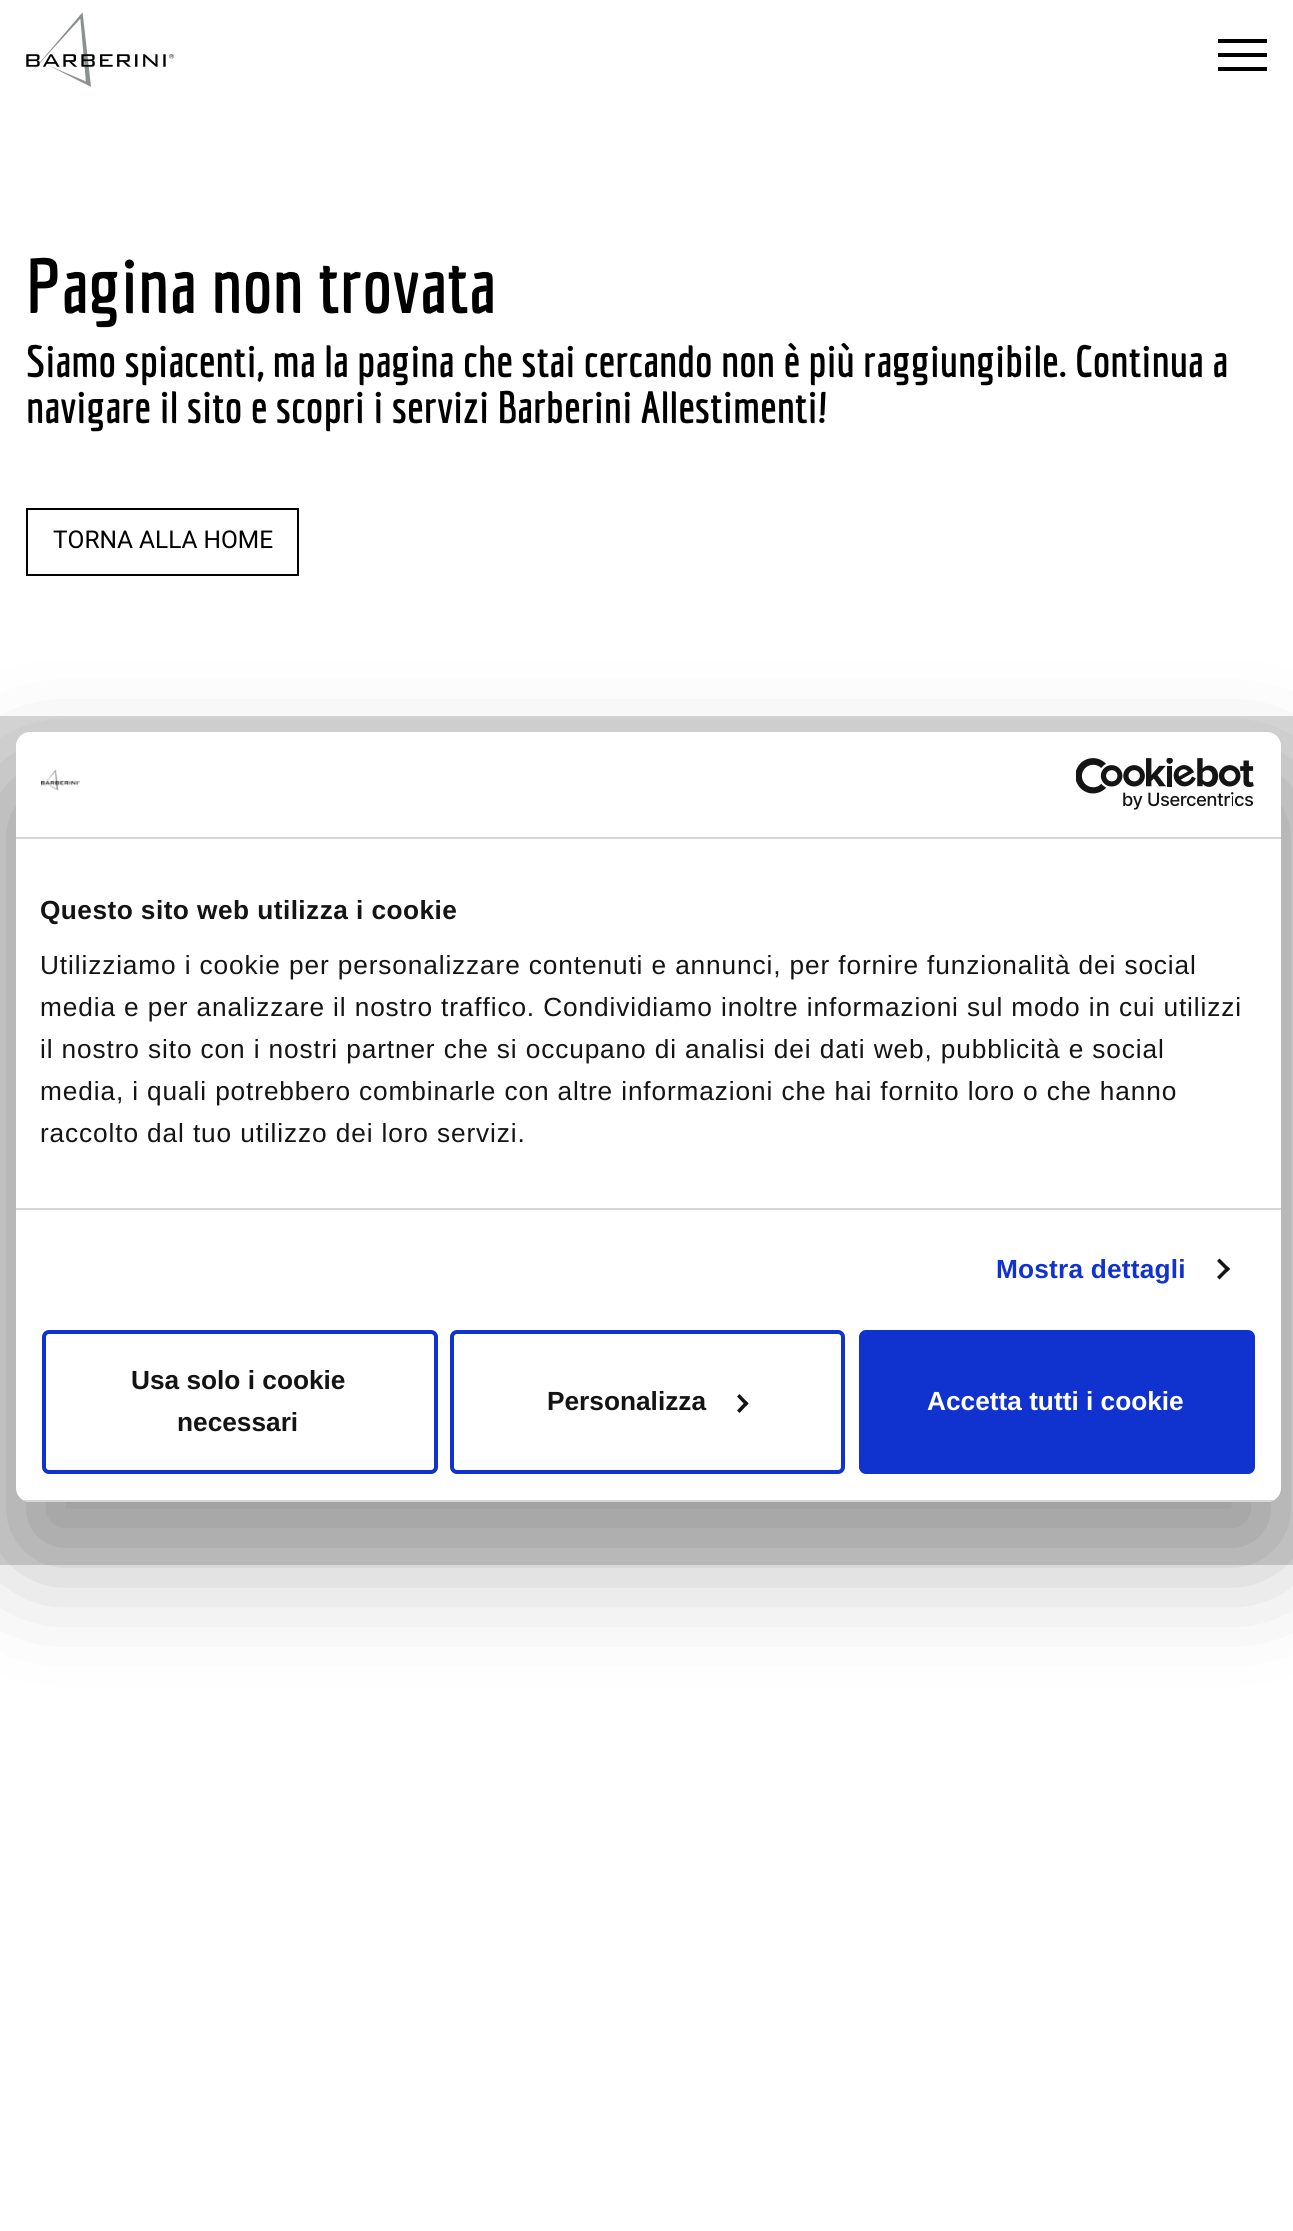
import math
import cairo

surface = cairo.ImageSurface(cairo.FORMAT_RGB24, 1293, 2231)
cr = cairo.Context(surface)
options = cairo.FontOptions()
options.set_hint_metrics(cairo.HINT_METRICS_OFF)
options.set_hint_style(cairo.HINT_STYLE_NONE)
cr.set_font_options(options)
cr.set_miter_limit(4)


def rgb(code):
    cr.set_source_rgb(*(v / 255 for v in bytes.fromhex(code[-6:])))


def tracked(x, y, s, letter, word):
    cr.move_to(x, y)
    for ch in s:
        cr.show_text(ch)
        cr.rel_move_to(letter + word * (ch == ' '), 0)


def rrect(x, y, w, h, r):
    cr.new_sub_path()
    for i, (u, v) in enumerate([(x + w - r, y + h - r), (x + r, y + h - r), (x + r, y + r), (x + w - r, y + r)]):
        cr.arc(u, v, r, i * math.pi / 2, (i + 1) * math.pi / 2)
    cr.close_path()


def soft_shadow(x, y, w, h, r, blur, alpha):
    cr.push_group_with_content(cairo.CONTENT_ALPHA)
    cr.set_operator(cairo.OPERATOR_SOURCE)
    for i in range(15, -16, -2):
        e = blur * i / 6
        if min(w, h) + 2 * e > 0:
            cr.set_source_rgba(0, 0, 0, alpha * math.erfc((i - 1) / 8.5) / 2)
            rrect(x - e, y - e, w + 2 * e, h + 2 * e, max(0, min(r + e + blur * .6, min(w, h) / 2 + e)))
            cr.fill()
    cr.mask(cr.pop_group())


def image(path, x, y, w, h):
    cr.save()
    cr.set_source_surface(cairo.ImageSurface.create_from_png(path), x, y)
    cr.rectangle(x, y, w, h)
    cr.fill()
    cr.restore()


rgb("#ffffff")
cr.paint()
image("img/1.png", 26, 12, 148, 75)
for x, y, w, h, color in [
    (1218, 39, 49, 4, "#000000"),
    (1218, 53, 49, 4, "#000000"),
    (1218, 67, 49, 4, "#000000"),
]:
    rgb(color)
    cr.rectangle(x, y, w, h)
    cr.fill()
cr.rectangle(27, 509, 271, 66)
cr.stroke()
rgb("#d8d8d8")
cr.rectangle(0, 716, 1293, 849)
cr.fill()
rgb("#000000")
soft_shadow(16, 788, 1265, 770, 14, 59.5, 0.3)
rgb("#ffffff")
rrect(16, 732, 1265, 770, 14)
cr.fill()
rgb("#d6d6d6")
cr.rectangle(16, 837, 1265, 2)
cr.fill()
image("img/2.png", 41, 769, 39, 22)
image("img/3.png", 1076, 758, 178, 52)
cr.rectangle(16, 1208, 1265, 2)
cr.fill()
rgb("#141414")
cr.new_path()
cr.move_to(1219.5, 1258.5)
cr.line_to(1230, 1269)
cr.line_to(1227.5, 1271.5)
cr.line_to(1217, 1261)
cr.close_path()
cr.fill()
cr.new_path()
cr.move_to(1227.5, 1266.5)
cr.line_to(1230, 1269)
cr.line_to(1219.5, 1279.5)
cr.line_to(1217, 1277)
cr.close_path()
cr.fill()
cr.save()
rrect(16, 732, 1265, 770, 14)
cr.clip()
rgb("#d6d6d6")
cr.rectangle(16, 1500, 1265, 2)
cr.fill()
cr.restore()
rrect(44, 1332, 392, 140, 5)
rgb("#1032cf")
cr.set_line_width(4)
cr.stroke()
rrect(452, 1332, 391, 140, 5)
cr.stroke()
rgb("#141414")
cr.new_path()
cr.move_to(739.5, 1394)
cr.line_to(748.5, 1403.5)
cr.line_to(746, 1406)
cr.line_to(737, 1396.5)
cr.close_path()
cr.fill()
cr.new_path()
cr.move_to(746, 1401)
cr.line_to(748.5, 1403.5)
cr.line_to(739.5, 1413)
cr.line_to(737, 1410.5)
cr.close_path()
cr.fill()
rgb("#1032cf")
rrect(861, 1332, 392, 140, 5)
cr.fill_preserve()
cr.stroke()
cr.select_font_face("Economica", cairo.FONT_SLANT_NORMAL, cairo.FONT_WEIGHT_BOLD)
cr.set_font_size(75.5)
rgb("#000000")
cr.move_to(26, 313)
cr.show_text("Pagina non trovata")
cr.set_font_size(44.1)
cr.move_to(26, 377)
cr.show_text("Siamo spiacenti, ma la pagina che stai cercando non è più raggiungibile. Continua a")
cr.move_to(26, 423)
cr.show_text("navigare il sito e scopri i servizi Barberini Allestimenti!")
cr.select_font_face("Roboto")
cr.set_font_size(24.5)
cr.move_to(53, 548)
cr.show_text("TORNA ALLA HOME")
cr.select_font_face("Liberation Sans", cairo.FONT_SLANT_NORMAL, cairo.FONT_WEIGHT_BOLD)
cr.set_font_size(26.25)
rgb("#141414")
tracked(40, 919, "Questo sito web utilizza i cookie", 0.45, 0)
cr.select_font_face("Liberation Sans")
for x, y, s in [
    (40, 974, "Utilizziamo i cookie per personalizzare contenuti e annunci, per fornire funzionalità dei social"),
    (40, 1016, "media e per analizzare il nostro traffico. Condividiamo inoltre informazioni sul modo in cui utilizzi"),
    (40, 1058, "il nostro sito con i nostri partner che si occupano di analisi dei dati web, pubblicità e social"),
    (40, 1100, "media, i quali potrebbero combinarle con altre informazioni che hai fornito loro o che hanno"),
    (40, 1142, "raccolto dal tuo utilizzo dei loro servizi."),
]:
    tracked(x, y, s, 0.88, 0)
cr.select_font_face("Liberation Sans", cairo.FONT_SLANT_NORMAL, cairo.FONT_WEIGHT_BOLD)
rgb("#1032cf")
tracked(996, 1278, "Mostra dettagli", 0.2, 0)
rgb("#141414")
for x, y, s in [
    (131, 1389, "Usa solo i cookie"),
    (177, 1431, "necessari"),
    (547, 1410, "Personalizza"),
]:
    cr.move_to(x, y)
    cr.show_text(s)
rgb("#ffffff")
cr.move_to(927, 1410)
cr.show_text("Accetta tutti i cookie")
surface.write_to_png("page.png")
